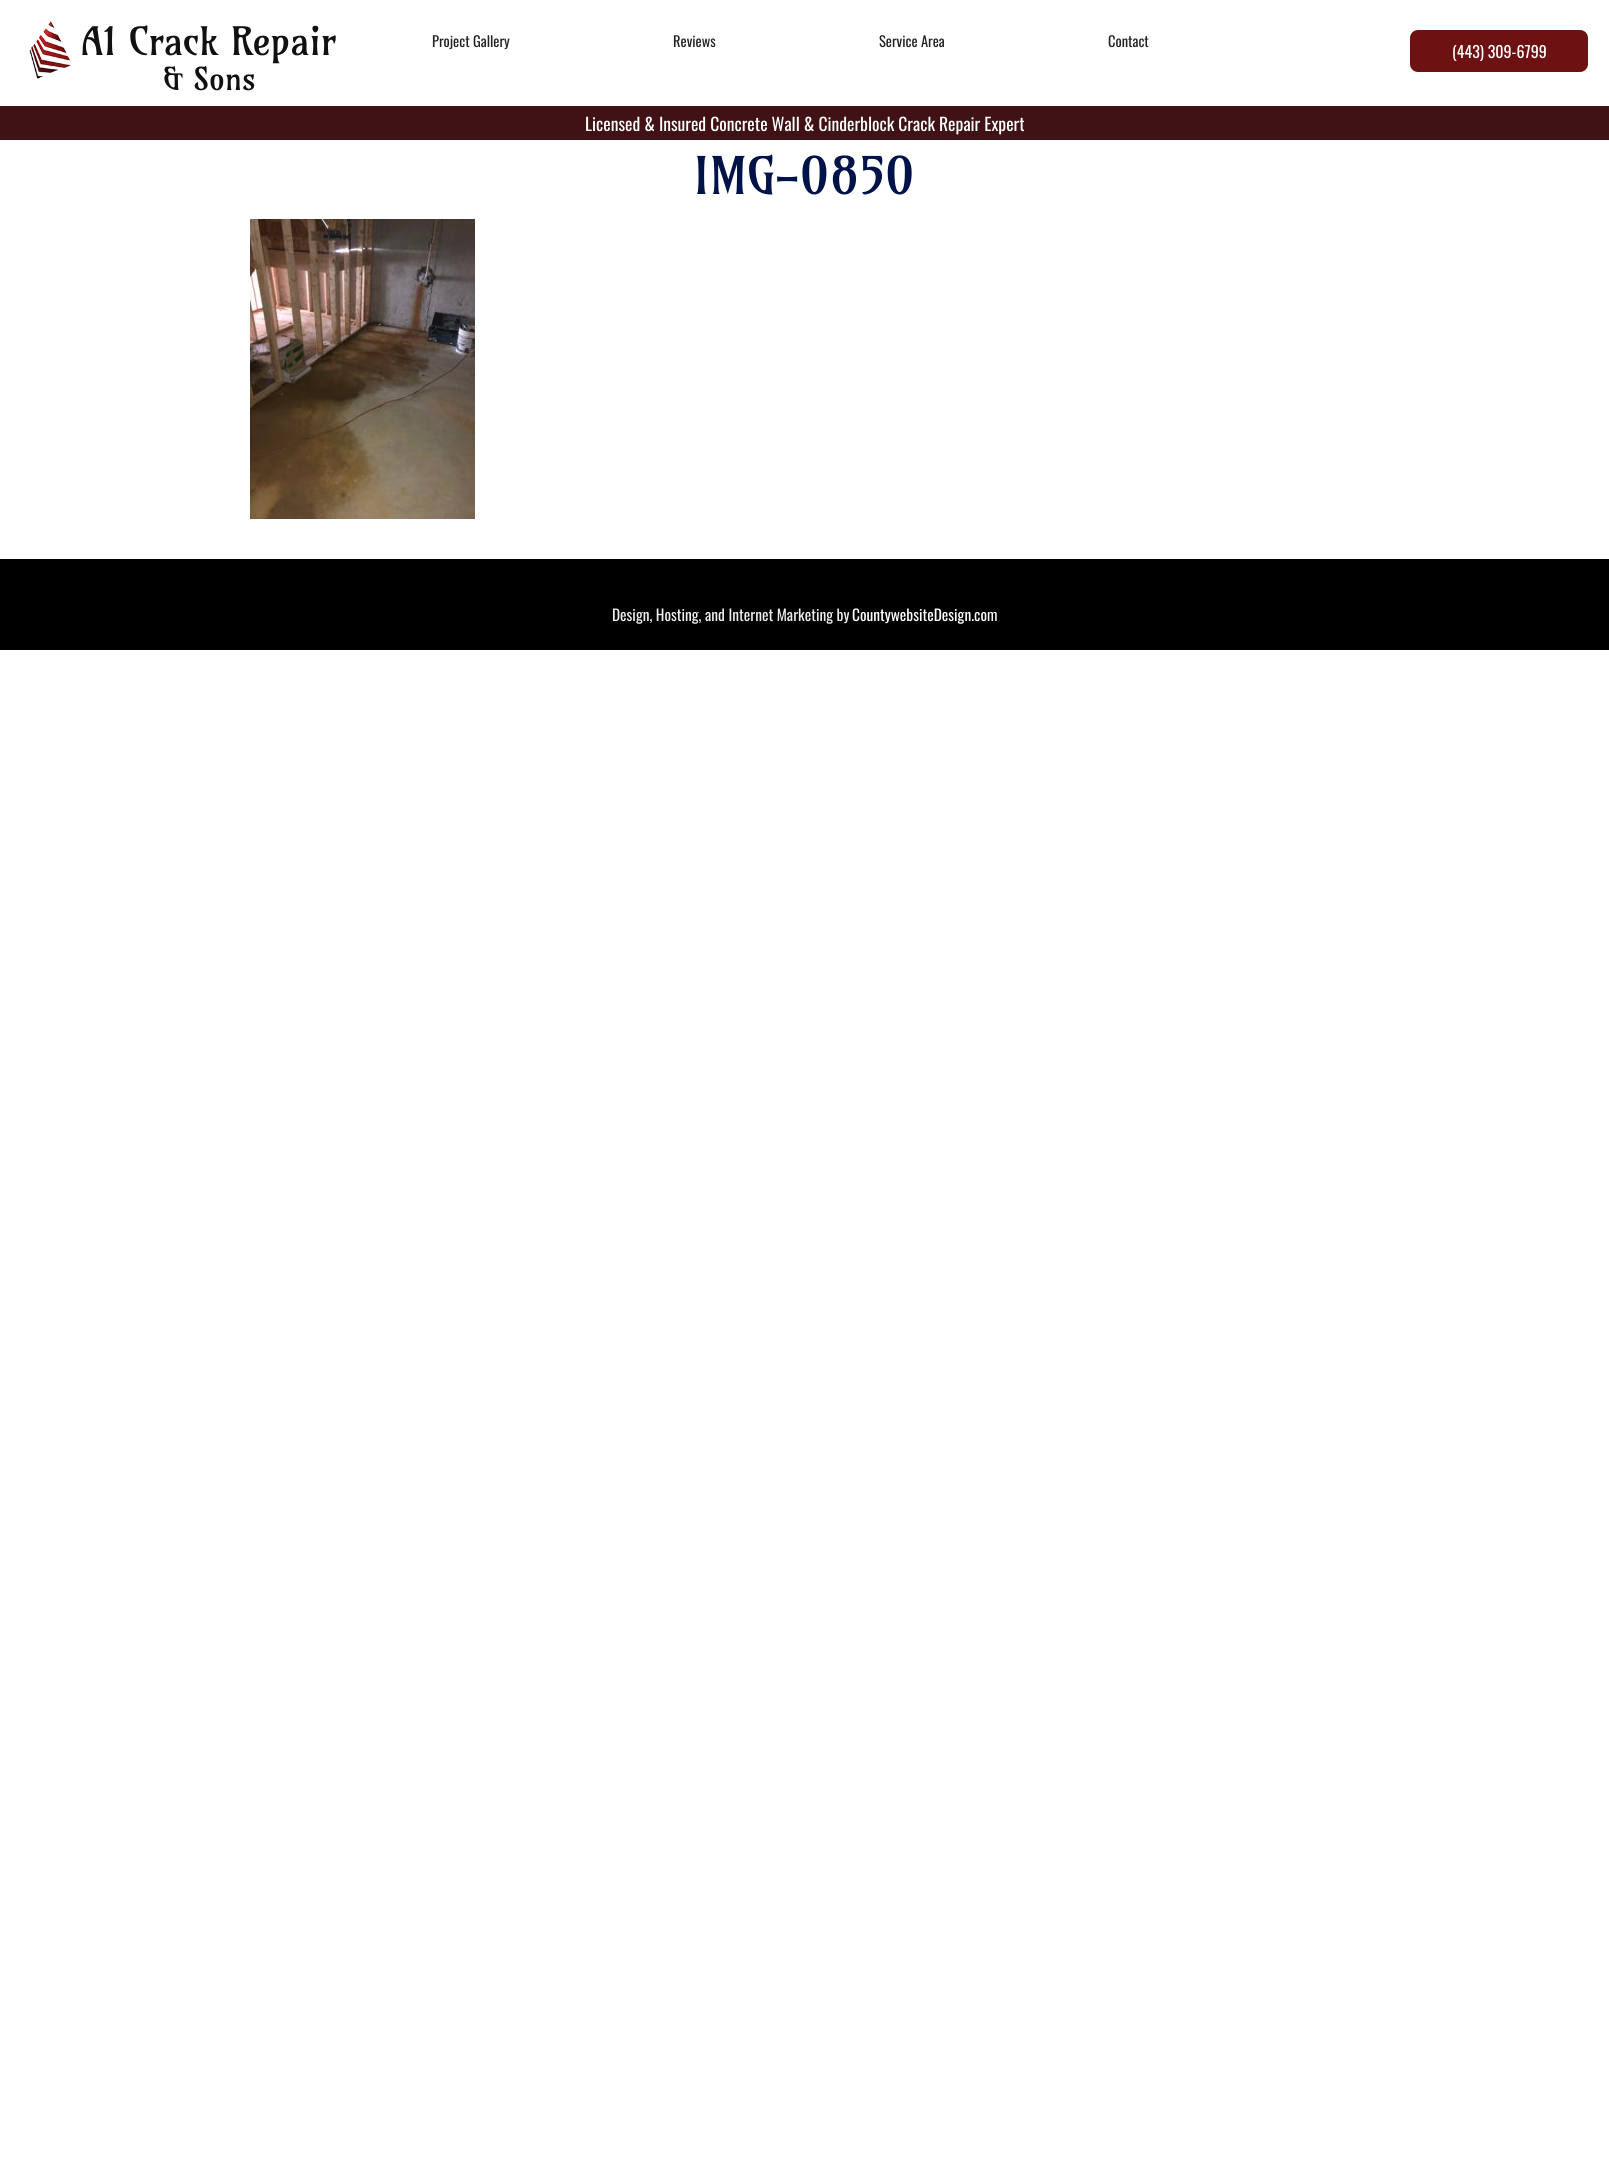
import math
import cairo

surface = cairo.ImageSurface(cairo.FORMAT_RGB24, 1609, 2160)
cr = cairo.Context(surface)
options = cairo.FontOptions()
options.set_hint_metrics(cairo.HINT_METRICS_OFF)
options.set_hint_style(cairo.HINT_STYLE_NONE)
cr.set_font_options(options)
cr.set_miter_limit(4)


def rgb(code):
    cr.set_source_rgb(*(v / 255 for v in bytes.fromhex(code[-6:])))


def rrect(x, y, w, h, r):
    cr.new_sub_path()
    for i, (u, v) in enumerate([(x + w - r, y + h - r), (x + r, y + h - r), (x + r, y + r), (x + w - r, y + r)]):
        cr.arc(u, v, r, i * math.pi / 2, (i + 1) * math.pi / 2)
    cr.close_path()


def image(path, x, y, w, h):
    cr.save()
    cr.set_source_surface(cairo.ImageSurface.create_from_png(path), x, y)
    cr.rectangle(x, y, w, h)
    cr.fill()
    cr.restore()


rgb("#ffffff")
cr.paint()
image("img/1.png", 29, 21, 42, 58)
rgb("#6d1113")
rrect(1410, 30, 178, 42, 8)
cr.fill()
rgb("#401215")
cr.rectangle(0, 106, 1609, 34)
cr.fill()
image("img/2.png", 250, 219, 225, 300)
rgb("#000000")
cr.rectangle(0, 559, 1609, 91)
cr.fill()
cr.select_font_face("Amarante")
cr.set_font_size(38.5)
rgb("#111111")
cr.move_to(81, 55)
cr.show_text("A1 Crack Repair")
cr.set_font_size(31)
cr.move_to(161, 90)
cr.show_text("& Sons")
cr.select_font_face("Oswald")
cr.set_font_size(16)
rgb("#ffffff")
cr.move_to(1452, 58)
cr.show_text("(443) 309-6799")
cr.set_font_size(14.5)
rgb("#222222")
for x, y, s in [
    (432, 47, "Project Gallery"),
    (673, 47, "Reviews"),
    (879, 47, "Service Area"),
    (1108, 47, "Contact"),
]:
    cr.move_to(x, y)
    cr.show_text(s)
cr.set_font_size(17.6)
rgb("#ffffff")
cr.move_to(585, 131)
cr.show_text("Licensed & Insured Concrete Wall & Cinderblock Crack Repair Expert")
cr.select_font_face("Amarante")
cr.set_font_size(51)
rgb("#001349")
cr.move_to(693, 194)
cr.show_text("IMG-0850")
cr.select_font_face("Oswald")
cr.set_font_size(15.4)
rgb("#eeeeee")
cr.move_to(612, 621)
cr.show_text("Design, Hosting, and Internet Marketing by")
rgb("#ffffff")
cr.move_to(852, 621)
cr.show_text("CountywebsiteDesign.com")
surface.write_to_png("page.png")
